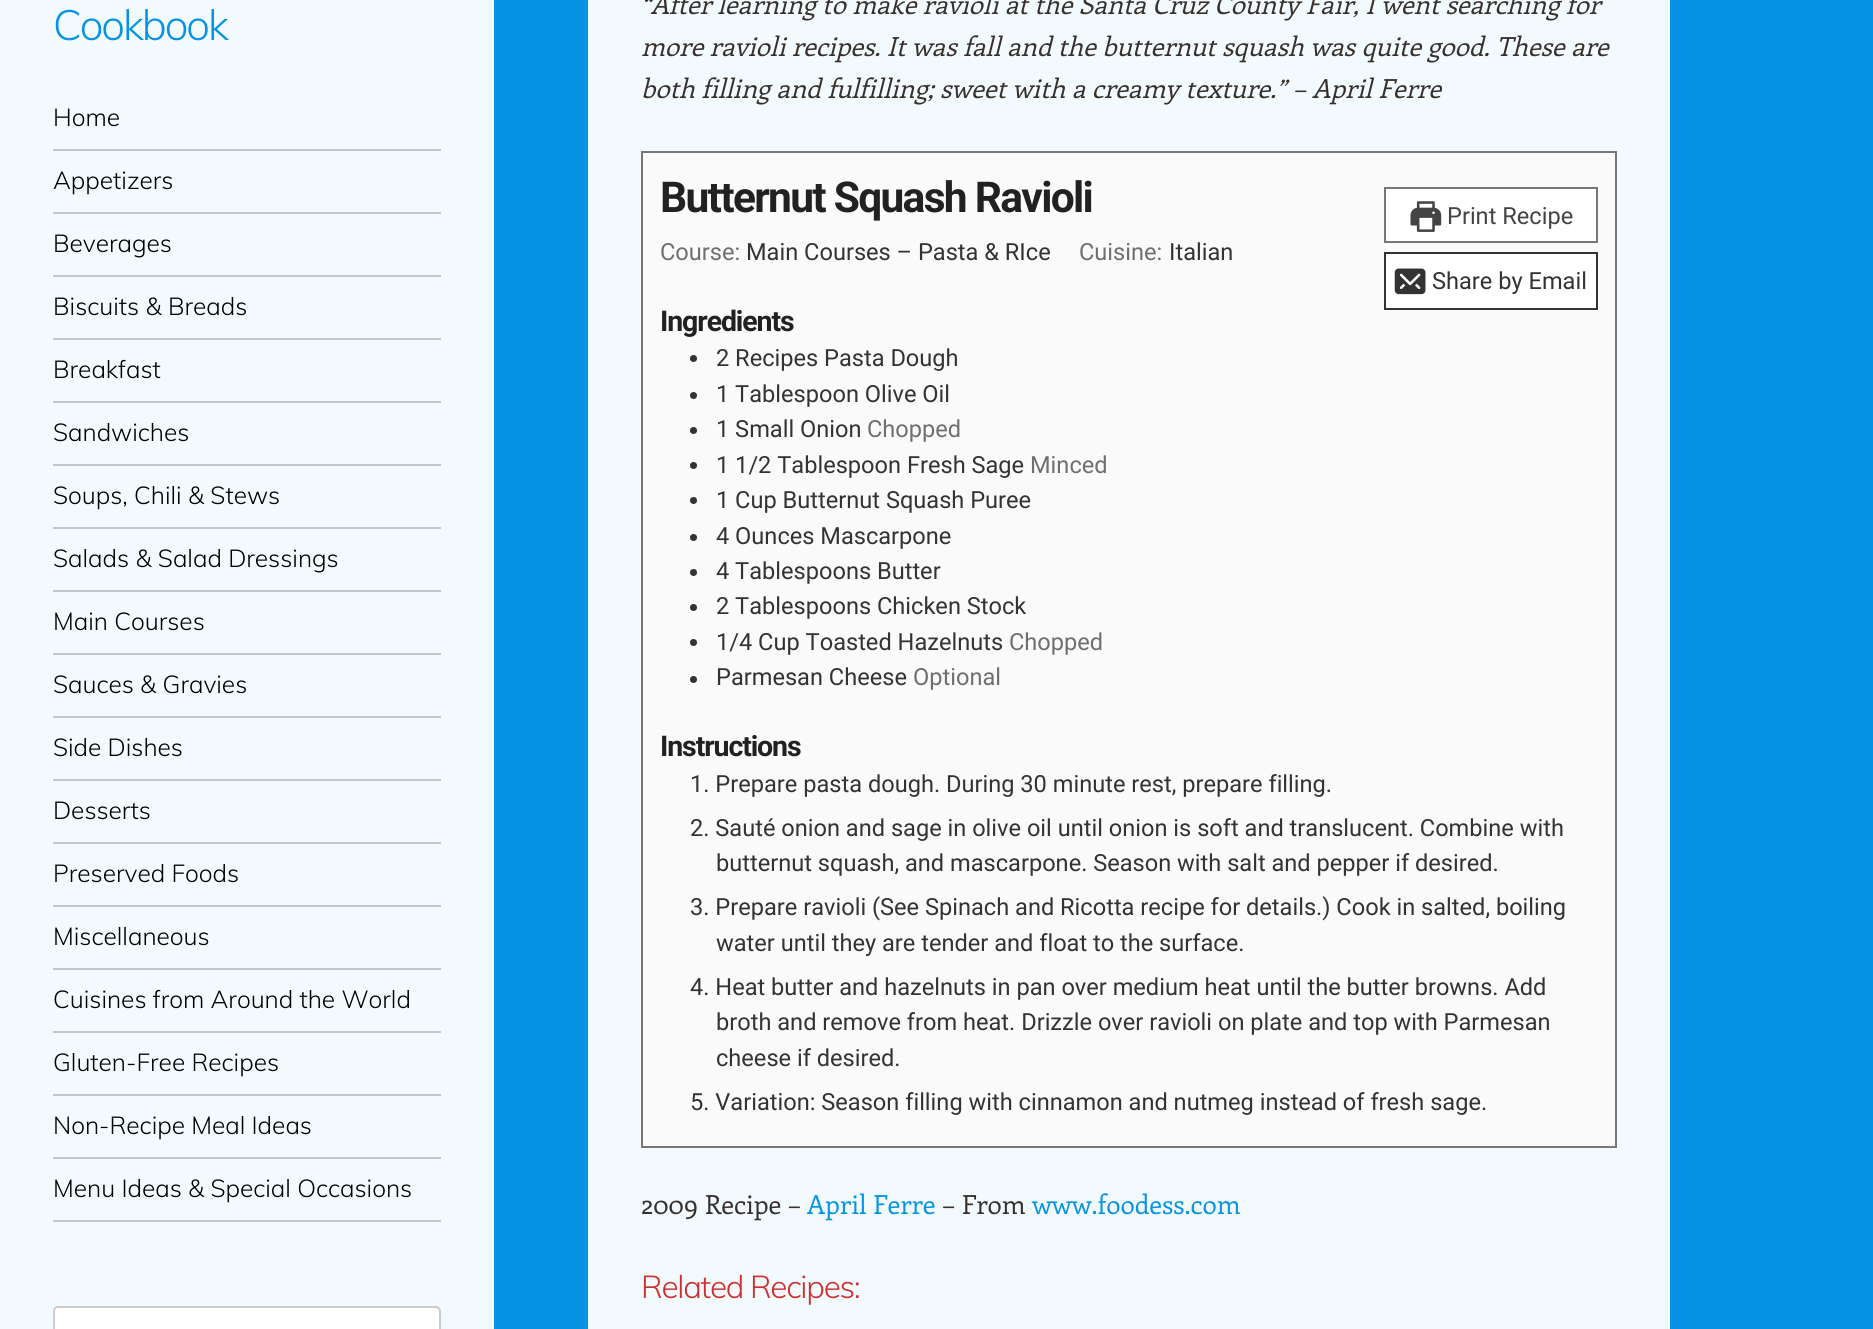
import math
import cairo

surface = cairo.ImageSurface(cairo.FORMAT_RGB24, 1873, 1329)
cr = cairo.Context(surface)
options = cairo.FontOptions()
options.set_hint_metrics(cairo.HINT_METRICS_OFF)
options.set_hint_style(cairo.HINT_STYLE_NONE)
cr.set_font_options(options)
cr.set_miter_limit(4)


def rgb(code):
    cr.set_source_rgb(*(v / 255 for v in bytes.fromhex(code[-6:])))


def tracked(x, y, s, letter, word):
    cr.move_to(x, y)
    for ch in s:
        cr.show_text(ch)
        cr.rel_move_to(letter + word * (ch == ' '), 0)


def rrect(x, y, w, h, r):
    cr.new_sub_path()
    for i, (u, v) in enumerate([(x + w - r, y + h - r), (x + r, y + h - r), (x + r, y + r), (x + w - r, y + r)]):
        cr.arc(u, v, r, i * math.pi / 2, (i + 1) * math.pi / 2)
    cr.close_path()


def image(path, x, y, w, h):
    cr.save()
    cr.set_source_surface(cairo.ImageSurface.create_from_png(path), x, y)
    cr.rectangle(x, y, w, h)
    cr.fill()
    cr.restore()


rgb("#0693e3")
cr.paint()
rgb("#f3fafe")
cr.rectangle(0, 0, 494, 1329)
cr.fill()
rgb("#f3fafd")
cr.rectangle(588, 0, 1082, 1329)
cr.fill()
rgb("#fafafa")
cr.rectangle(642, 152, 974, 995)
cr.fill_preserve()
rgb("#777777")
cr.stroke()
rgb("#ffffff")
cr.rectangle(1385, 188, 212, 54)
cr.fill_preserve()
rgb("#777777")
cr.stroke()
image("img/1.png", 1410, 201, 32, 31)
rgb("#ffffff")
cr.rectangle(1385, 253, 212, 56)
cr.fill_preserve()
rgb("#333333")
cr.stroke()
image("img/2.png", 1394, 268, 32, 27)
cr.arc(693.5, 358.5, 3.5, 0, 2 * math.pi)
cr.fill()
cr.arc(693.5, 395.5, 3.5, 0, 2 * math.pi)
cr.fill()
cr.arc(693.5, 430.5, 3.5, 0, 2 * math.pi)
cr.fill()
cr.arc(693.5, 465.5, 3.5, 0, 2 * math.pi)
cr.fill()
cr.arc(693.5, 500.5, 3.5, 0, 2 * math.pi)
cr.fill()
cr.arc(693.5, 537.5, 3.5, 0, 2 * math.pi)
cr.fill()
cr.arc(693.5, 572.5, 3.5, 0, 2 * math.pi)
cr.fill()
cr.arc(693.5, 607.5, 3.5, 0, 2 * math.pi)
cr.fill()
cr.arc(693.5, 642.5, 3.5, 0, 2 * math.pi)
cr.fill()
cr.arc(693.5, 679.5, 3.5, 0, 2 * math.pi)
cr.fill()
for x, y, w, h, color in [
    (53, 149, 388, 2, "#c2c8cb"),
    (53, 212, 388, 2, "#c2c8cb"),
    (53, 275, 388, 2, "#c2c8cb"),
    (53, 338, 388, 2, "#c2c8cb"),
    (53, 401, 388, 2, "#c2c8cb"),
    (53, 464, 388, 2, "#c2c8cb"),
    (53, 527, 388, 2, "#c2c8cb"),
    (53, 590, 388, 2, "#c2c8cb"),
    (53, 653, 388, 2, "#c2c8cb"),
    (53, 716, 388, 2, "#c2c8cb"),
    (53, 779, 388, 2, "#c2c8cb"),
    (53, 842, 388, 2, "#c2c8cb"),
    (53, 905, 388, 2, "#c2c8cb"),
    (53, 968, 388, 2, "#c2c8cb"),
    (53, 1031, 388, 2, "#c2c8cb"),
    (53, 1094, 388, 2, "#c2c8cb"),
    (53, 1157, 388, 2, "#c2c8cb"),
    (53, 1220, 388, 2, "#c2c8cb"),
]:
    rgb(color)
    cr.rectangle(x, y, w, h)
    cr.fill()
rgb("#ffffff")
rrect(53, 1306, 388, 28, 5)
cr.fill()
rrect(54, 1307, 386, 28, 4)
cr.set_source_rgba(0, 0, 0, 0.2)
cr.stroke()
cr.select_font_face("Enriqueta", cairo.FONT_SLANT_ITALIC)
cr.set_font_size(26.25)
rgb("#36312d")
for x, y, s in [
    (641, 14, "“After learning to make ravioli at the Santa Cruz County Fair, I went searching for"),
    (641, 56, "more ravioli recipes. It was fall and the butternut squash was quite good. These are"),
    (641, 98, "both filling and fulfilling; sweet with a creamy texture.” – April Ferre"),
]:
    cr.move_to(x, y)
    cr.show_text(s)
cr.select_font_face("Roboto", cairo.FONT_SLANT_NORMAL, cairo.FONT_WEIGHT_BOLD)
cr.set_font_size(42.5)
rgb("#212121")
tracked(660, 212, "Butternut Squash Ravioli", -1.7, 0)
cr.select_font_face("Roboto")
cr.set_font_size(23.6)
rgb("#6f6f6f")
cr.move_to(660, 260)
cr.show_text("Course:")
rgb("#333333")
cr.move_to(746, 260)
cr.show_text("Main Courses – Pasta & RIce")
rgb("#6f6f6f")
cr.move_to(1079, 260)
cr.show_text("Cuisine:")
rgb("#333333")
cr.move_to(1169, 260)
cr.show_text("Italian")
rgb("#444444")
cr.move_to(1447, 224)
cr.show_text("Print Recipe")
rgb("#333333")
cr.move_to(1432, 289)
cr.show_text("Share by Email")
cr.select_font_face("Roboto", cairo.FONT_SLANT_NORMAL, cairo.FONT_WEIGHT_BOLD)
cr.set_font_size(28.5)
rgb("#212121")
tracked(660, 331, "Ingredients", -1.1, 0)
cr.select_font_face("Roboto")
cr.set_font_size(23.6)
rgb("#333333")
for x, y, s in [
    (716, 366, "2 Recipes Pasta Dough"),
    (716, 402, "1 Tablespoon Olive Oil"),
    (716, 437, "1 Small Onion"),
]:
    cr.move_to(x, y)
    cr.show_text(s)
rgb("#6f6f6f")
cr.move_to(867, 437)
cr.show_text("Chopped")
rgb("#333333")
cr.move_to(716, 473)
cr.show_text("1 1/2 Tablespoon Fresh Sage")
rgb("#6f6f6f")
cr.move_to(1030, 473)
cr.show_text("Minced")
rgb("#333333")
for x, y, s in [
    (716, 508, "1 Cup Butternut Squash Puree"),
    (716, 544, "4 Ounces Mascarpone"),
    (716, 579, "4 Tablespoons Butter"),
    (716, 614, "2 Tablespoons Chicken Stock"),
    (716, 650, "1/4 Cup Toasted Hazelnuts"),
]:
    cr.move_to(x, y)
    cr.show_text(s)
rgb("#6f6f6f")
cr.move_to(1009, 650)
cr.show_text("Chopped")
rgb("#333333")
cr.move_to(716, 685)
cr.show_text("Parmesan Cheese")
rgb("#6f6f6f")
cr.move_to(913, 685)
cr.show_text("Optional")
cr.select_font_face("Roboto", cairo.FONT_SLANT_NORMAL, cairo.FONT_WEIGHT_BOLD)
cr.set_font_size(28.5)
rgb("#212121")
tracked(660, 756, "Instructions", -1.1, 0)
cr.select_font_face("Roboto")
cr.set_font_size(23.6)
rgb("#333333")
for x, y, s in [
    (690, 792, "1. Prepare pasta dough. During 30 minute rest, prepare filling."),
    (690, 836, "2. Sauté onion and sage in olive oil until onion is soft and translucent. Combine with"),
    (716, 871, "butternut squash, and mascarpone. Season with salt and pepper if desired."),
    (690, 915, "3. Prepare ravioli (See Spinach and Ricotta recipe for details.) Cook in salted, boiling"),
    (716, 951, "water until they are tender and float to the surface."),
    (690, 995, "4. Heat butter and hazelnuts in pan over medium heat until the butter browns. Add"),
    (716, 1030, "broth and remove from heat. Drizzle over ravioli on plate and top with Parmesan"),
    (716, 1066, "cheese if desired."),
    (690, 1110, "5. Variation: Season filling with cinnamon and nutmeg instead of fresh sage."),
]:
    cr.move_to(x, y)
    cr.show_text(s)
cr.select_font_face("Enriqueta")
cr.set_font_size(26.25)
rgb("#36312d")
cr.move_to(641, 1214)
cr.show_text("2009 Recipe –")
rgb("#0693e3")
cr.move_to(807, 1214)
cr.show_text("April Ferre")
rgb("#36312d")
cr.move_to(942, 1214)
cr.show_text("– From")
rgb("#0693e3")
cr.move_to(1032, 1214)
cr.show_text("www.foodess.com")
cr.select_font_face("Muli Light")
cr.set_font_size(31.5)
rgb("#cf2e2e")
tracked(641, 1298, "Related Recipes:", -1.25, 0)
cr.set_font_size(42)
rgb("#0693e3")
tracked(53, 40, "Cookbook", -2, 0)
cr.set_font_size(24.5)
rgb("#000000")
for x, y, s in [
    (53, 126, "Home"),
    (53, 189, "Appetizers"),
    (53, 252, "Beverages"),
    (53, 315, "Biscuits & Breads"),
    (53, 378, "Breakfast"),
    (53, 441, "Sandwiches"),
    (53, 504, "Soups, Chili & Stews"),
    (53, 567, "Salads & Salad Dressings"),
    (53, 630, "Main Courses"),
    (53, 693, "Sauces & Gravies"),
    (53, 756, "Side Dishes"),
    (53, 819, "Desserts"),
    (53, 882, "Preserved Foods"),
    (53, 945, "Miscellaneous"),
    (53, 1008, "Cuisines from Around the World"),
    (53, 1071, "Gluten-Free Recipes"),
    (53, 1134, "Non-Recipe Meal Ideas"),
    (53, 1197, "Menu Ideas & Special Occasions"),
]:
    cr.move_to(x, y)
    cr.show_text(s)
surface.write_to_png("page.png")
